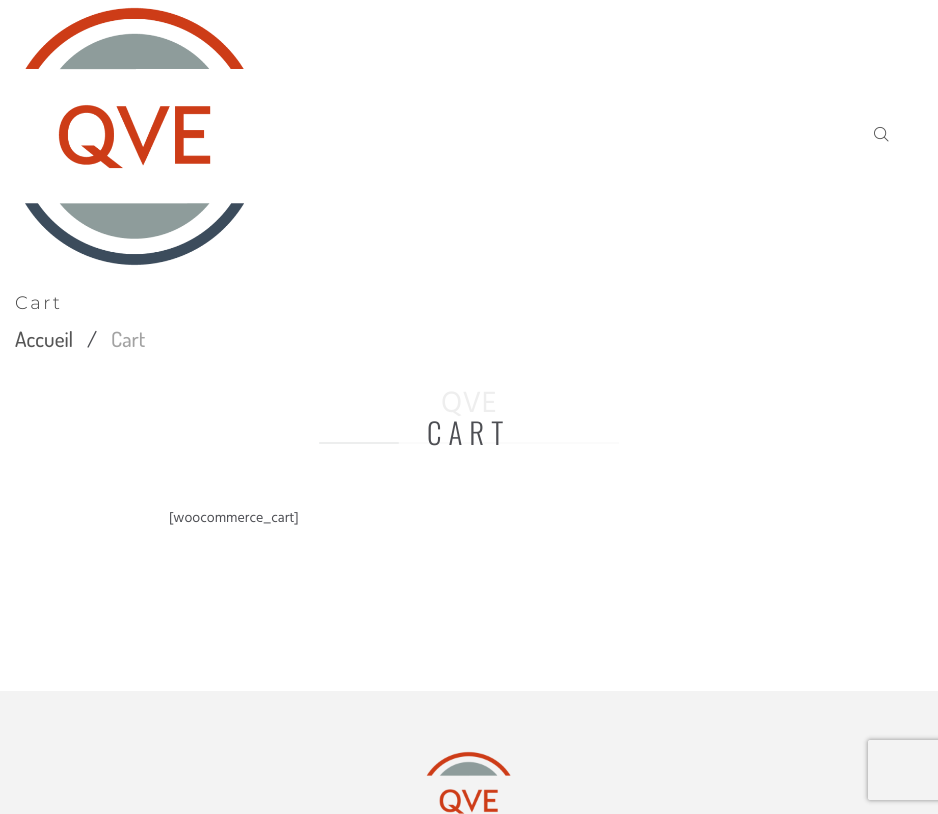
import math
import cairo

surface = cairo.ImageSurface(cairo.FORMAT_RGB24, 938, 814)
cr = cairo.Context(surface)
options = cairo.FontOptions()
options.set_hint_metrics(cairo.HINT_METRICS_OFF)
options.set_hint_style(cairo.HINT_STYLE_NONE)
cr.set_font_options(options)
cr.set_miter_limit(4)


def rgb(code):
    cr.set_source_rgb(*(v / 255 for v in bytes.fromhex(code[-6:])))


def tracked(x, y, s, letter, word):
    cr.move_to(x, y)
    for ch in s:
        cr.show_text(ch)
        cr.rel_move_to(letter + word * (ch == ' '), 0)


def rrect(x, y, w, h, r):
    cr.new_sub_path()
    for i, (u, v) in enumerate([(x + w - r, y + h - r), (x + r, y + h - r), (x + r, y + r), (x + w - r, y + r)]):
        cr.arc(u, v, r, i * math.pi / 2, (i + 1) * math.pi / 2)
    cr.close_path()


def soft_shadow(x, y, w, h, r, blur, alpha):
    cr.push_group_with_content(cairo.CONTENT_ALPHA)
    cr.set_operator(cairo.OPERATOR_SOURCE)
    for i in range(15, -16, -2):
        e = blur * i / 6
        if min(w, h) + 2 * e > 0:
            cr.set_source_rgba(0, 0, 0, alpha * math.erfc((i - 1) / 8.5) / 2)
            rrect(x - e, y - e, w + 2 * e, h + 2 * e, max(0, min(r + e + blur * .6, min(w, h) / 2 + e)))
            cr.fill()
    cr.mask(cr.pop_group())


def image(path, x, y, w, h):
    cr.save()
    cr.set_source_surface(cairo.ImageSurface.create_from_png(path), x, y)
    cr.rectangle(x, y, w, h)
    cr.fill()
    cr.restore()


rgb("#ffffff")
cr.paint()
image("img/1.png", 25, 7, 219, 259)
image("img/2.png", 874, 126, 15, 16)
rgb("#f3f3f3")
cr.rectangle(0, 691, 938, 123)
cr.fill()
image("img/3.png", 426, 751, 85, 63)
cr.set_source_rgba(0.847, 0.847, 0.847, 0.09)
cr.rectangle(319, 442, 300, 2)
cr.fill()
rgb("#edeeee")
rrect(319, 442, 80, 2, 1)
cr.fill()
cr.save()
cr.set_fill_rule(cairo.FILL_RULE_EVEN_ODD)
cr.new_path()
cr.move_to(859, 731)
cr.line_to(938, 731)
cr.line_to(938, 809)
cr.line_to(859, 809)
cr.close_path()
cr.move_to(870, 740)
cr.line_to(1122, 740)
cr.curve_to(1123, 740, 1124, 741, 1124, 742)
cr.line_to(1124, 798)
cr.curve_to(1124, 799, 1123, 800, 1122, 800)
cr.line_to(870, 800)
cr.curve_to(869, 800, 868, 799, 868, 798)
cr.line_to(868, 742)
cr.curve_to(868, 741, 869, 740, 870, 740)
cr.close_path()
cr.clip()
rgb("#8b8b8b")
soft_shadow(868, 740, 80, 60, 2, 2.5, 1)
cr.restore()
cr.select_font_face("Montserrat Light")
cr.set_font_size(18)
rgb("#434343")
tracked(15, 309, "Cart", 2.5, 0)
cr.select_font_face("Dosis Medium")
cr.set_font_size(21)
rgb("#555555")
cr.move_to(15, 347)
cr.show_text("Accueil")
rgb("#4d4e53")
cr.move_to(87, 347)
cr.show_text("/")
rgb("#a2a2a2")
cr.move_to(111, 347)
cr.show_text("Cart")
cr.select_font_face("Oswald Light")
cr.set_font_size(29)
rgb("#4d4e53")
tracked(427, 445, "CART", 7, 0)
cr.select_font_face("Hind")
cr.set_font_size(14)
cr.move_to(169, 522)
cr.show_text("[woocommerce_cart]")
cr.set_font_size(30)
rgb("#eeeeee")
cr.move_to(441, 412)
cr.show_text("QVE")
surface.write_to_png("page.png")
